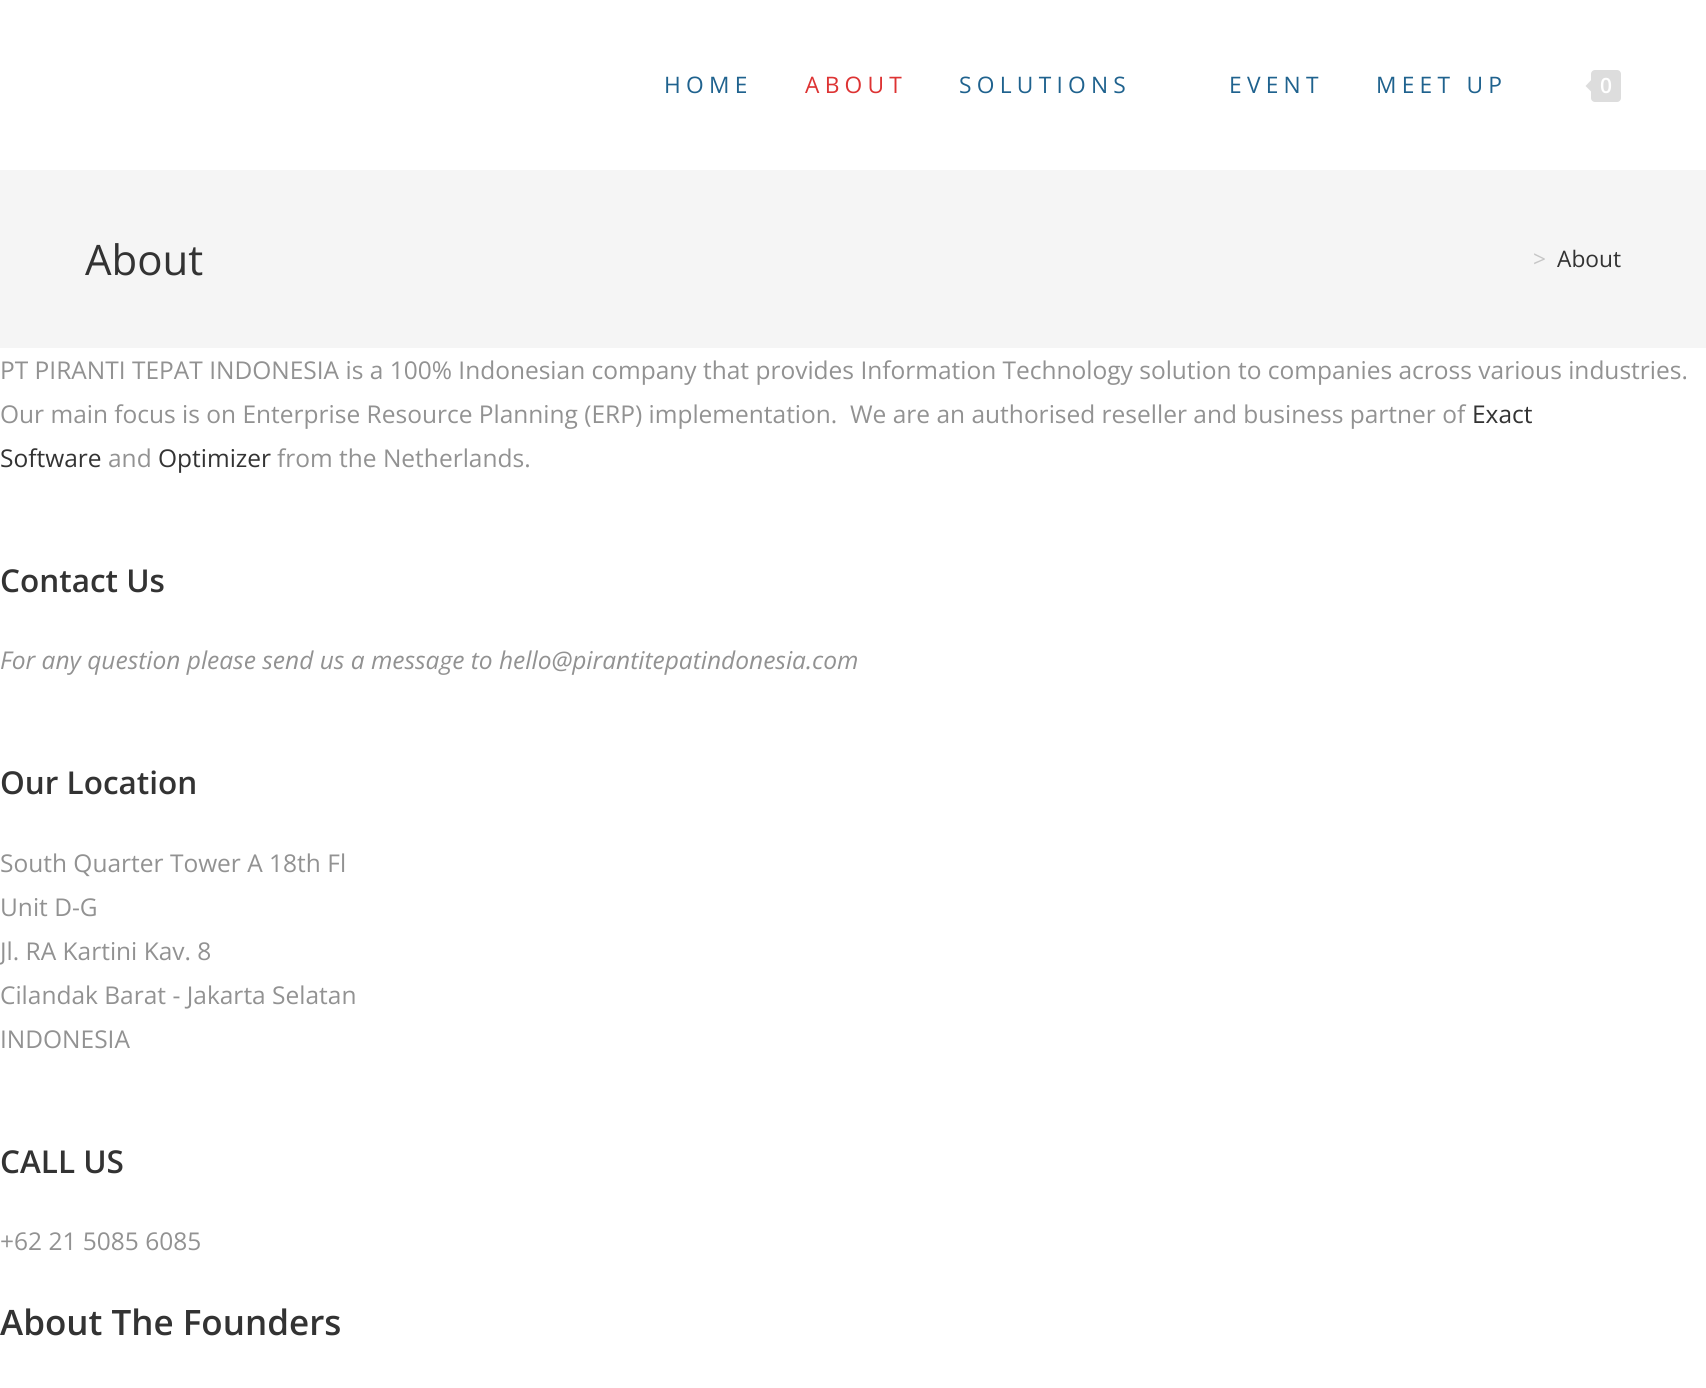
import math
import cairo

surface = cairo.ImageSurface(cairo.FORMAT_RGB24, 1706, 1388)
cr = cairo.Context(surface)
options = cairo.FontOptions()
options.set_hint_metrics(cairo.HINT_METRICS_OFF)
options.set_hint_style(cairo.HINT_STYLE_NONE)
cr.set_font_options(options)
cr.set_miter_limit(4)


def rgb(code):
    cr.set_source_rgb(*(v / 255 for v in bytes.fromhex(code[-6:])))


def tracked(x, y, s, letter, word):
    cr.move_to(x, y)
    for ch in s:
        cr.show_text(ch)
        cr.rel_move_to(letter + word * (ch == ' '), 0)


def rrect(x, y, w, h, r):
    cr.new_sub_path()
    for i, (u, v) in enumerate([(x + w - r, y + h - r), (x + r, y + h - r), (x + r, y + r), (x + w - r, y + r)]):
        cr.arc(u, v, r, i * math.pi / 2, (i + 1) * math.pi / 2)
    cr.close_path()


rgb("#ffffff")
cr.paint()
rgb("#dddddd")
rrect(1591, 70, 30, 32, 4)
cr.fill()
cr.new_path()
cr.move_to(1594, 77)
cr.line_to(1594, 94.5)
cr.line_to(1585.5, 86)
cr.close_path()
cr.fill()
rgb("#f5f5f5")
cr.rectangle(0, 170, 1706, 178)
cr.fill()
cr.select_font_face("Open Sans")
cr.set_font_size(22.75)
rgb("#1f628e")
tracked(664, 93, "HOME", 5.25, 0)
rgb("#dd3333")
tracked(805, 93, "ABOUT", 5.25, 0)
rgb("#1f628e")
for x, y, s in [
    (959, 93, "SOLUTIONS"),
    (1229, 93, "EVENT"),
    (1376, 93, "MEET UP"),
]:
    tracked(x, y, s, 5.25, 0)
cr.select_font_face("Open Sans SemiBold")
cr.set_font_size(21)
rgb("#ffffff")
cr.move_to(1600, 93)
cr.show_text("0")
cr.select_font_face("Open Sans")
cr.set_font_size(42)
rgb("#333333")
cr.move_to(85, 275)
cr.show_text("About")
cr.set_font_size(22.75)
rgb("#c6c6c6")
cr.move_to(1533, 267)
cr.show_text(">")
rgb("#333333")
cr.move_to(1557, 267)
cr.show_text("About")
cr.set_font_size(24.5)
rgb("#929292")
cr.move_to(0, 379)
cr.show_text("PT PIRANTI TEPAT INDONESIA is a 100% Indonesian company that provides Information Technology solution to companies across various industries.")
cr.move_to(0, 423)
cr.show_text("Our main focus is on Enterprise Resource Planning (ERP) implementation.  We are an authorised reseller and business partner of")
rgb("#333333")
cr.move_to(1472, 423)
cr.show_text("Exact")
cr.move_to(0, 467)
cr.show_text("Software")
rgb("#929292")
cr.move_to(108, 467)
cr.show_text("and")
rgb("#333333")
cr.move_to(158, 467)
cr.show_text("Optimizer")
rgb("#929292")
cr.move_to(277, 467)
cr.show_text("from the Netherlands.")
cr.select_font_face("Open Sans SemiBold")
cr.set_font_size(31.5)
rgb("#333333")
cr.move_to(0, 592)
cr.show_text("Contact Us")
cr.select_font_face("Open Sans", cairo.FONT_SLANT_ITALIC)
cr.set_font_size(24.5)
rgb("#929292")
cr.move_to(0, 669)
cr.show_text("For any question please send us a message to hello@pirantitepatindonesia.com")
cr.select_font_face("Open Sans SemiBold")
cr.set_font_size(31.5)
rgb("#333333")
cr.move_to(0, 794)
cr.show_text("Our Location")
cr.select_font_face("Open Sans")
cr.set_font_size(24.5)
rgb("#929292")
for x, y, s in [
    (0, 872, "South Quarter Tower A 18th Fl"),
    (0, 916, "Unit D-G"),
    (0, 960, "Jl. RA Kartini Kav. 8"),
    (0, 1004, "Cilandak Barat - Jakarta Selatan"),
    (0, 1048, "INDONESIA"),
]:
    cr.move_to(x, y)
    cr.show_text(s)
cr.select_font_face("Open Sans SemiBold")
cr.set_font_size(31.5)
rgb("#333333")
cr.move_to(0, 1173)
cr.show_text("CALL US")
cr.select_font_face("Open Sans")
cr.set_font_size(24.5)
rgb("#929292")
cr.move_to(0, 1250)
cr.show_text("+62 21 5085 6085")
cr.select_font_face("Open Sans SemiBold")
cr.set_font_size(35)
rgb("#333333")
cr.move_to(0, 1335)
cr.show_text("About The Founders")
surface.write_to_png("page.png")
